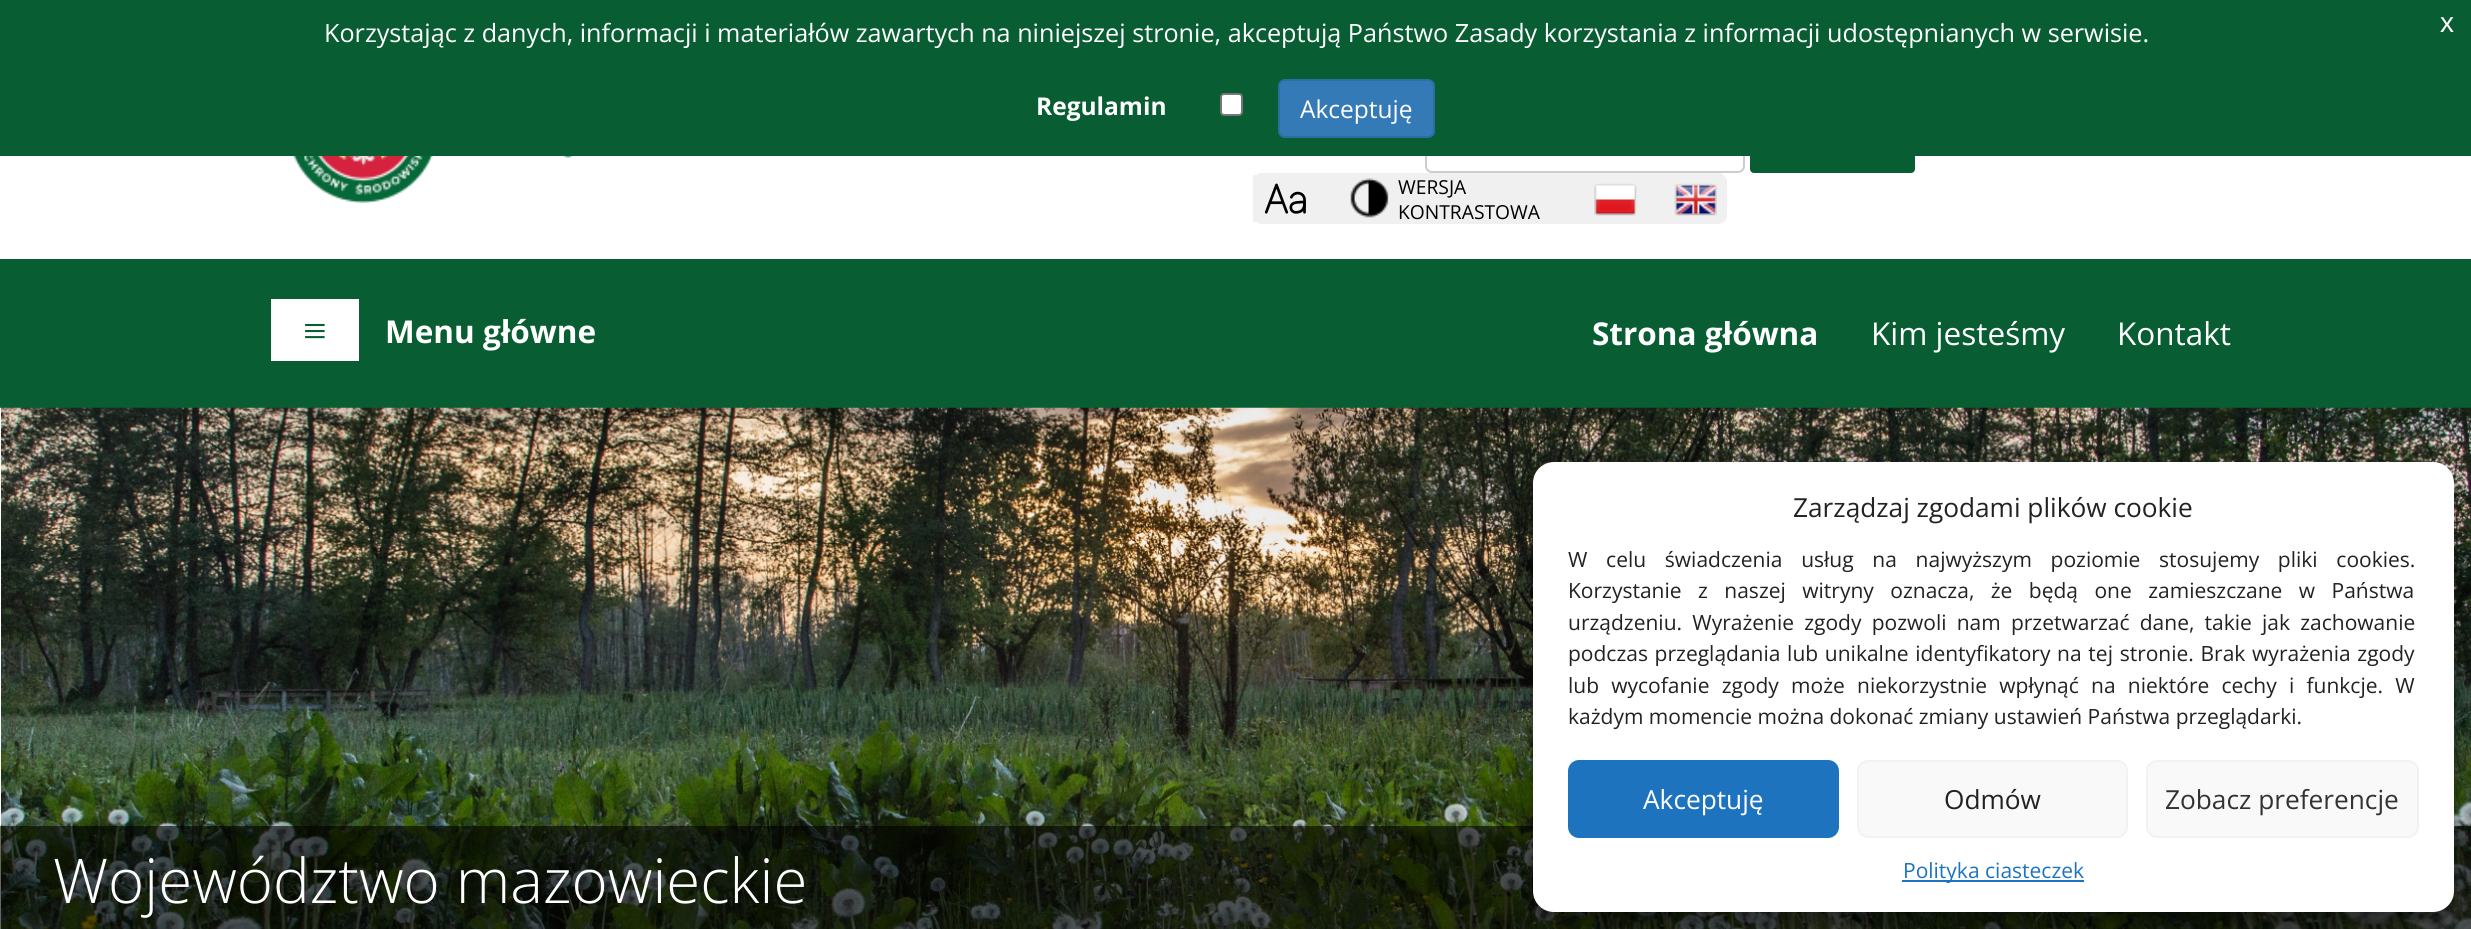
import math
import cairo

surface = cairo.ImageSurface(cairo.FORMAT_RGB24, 2471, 929)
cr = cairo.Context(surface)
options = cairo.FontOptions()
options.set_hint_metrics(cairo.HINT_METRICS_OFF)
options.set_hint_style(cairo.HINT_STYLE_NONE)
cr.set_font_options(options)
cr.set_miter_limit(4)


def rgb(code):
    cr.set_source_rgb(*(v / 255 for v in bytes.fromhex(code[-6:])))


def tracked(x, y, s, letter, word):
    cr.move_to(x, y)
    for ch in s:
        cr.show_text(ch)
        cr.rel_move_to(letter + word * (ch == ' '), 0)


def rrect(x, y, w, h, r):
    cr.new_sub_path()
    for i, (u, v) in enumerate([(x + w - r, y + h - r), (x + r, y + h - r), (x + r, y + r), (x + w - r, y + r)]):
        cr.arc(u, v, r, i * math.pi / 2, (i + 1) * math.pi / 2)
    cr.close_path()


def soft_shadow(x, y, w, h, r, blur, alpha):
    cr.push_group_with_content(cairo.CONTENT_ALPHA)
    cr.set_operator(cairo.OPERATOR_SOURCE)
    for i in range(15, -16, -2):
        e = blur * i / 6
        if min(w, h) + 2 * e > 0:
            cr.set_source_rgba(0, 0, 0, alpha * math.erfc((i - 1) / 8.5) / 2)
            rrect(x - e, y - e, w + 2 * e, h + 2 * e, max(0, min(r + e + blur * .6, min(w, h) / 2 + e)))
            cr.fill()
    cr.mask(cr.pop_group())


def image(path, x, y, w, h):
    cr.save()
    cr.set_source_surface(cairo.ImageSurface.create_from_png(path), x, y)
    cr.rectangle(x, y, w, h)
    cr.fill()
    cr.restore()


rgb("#ffffff")
cr.paint()
rrect(1426, 115, 318, 57, 6)
rgb("#cccccc")
cr.stroke()
rgb("#095d32")
rrect(1751, 115, 163, 57, 3)
cr.fill_preserve()
cr.stroke()
cr.rectangle(0, 0, 2471, 156)
cr.fill()
rgb("#ffffff")
rrect(1221, 94, 21, 21, 3)
cr.fill_preserve()
rgb("#767676")
cr.stroke()
rgb("#337ab7")
rrect(1279, 80, 155, 57, 6)
cr.fill_preserve()
rgb("#2e6da4")
cr.stroke()
image("img/1.png", 293, 156, 280, 47)
rgb("#f0f0f0")
rrect(1253, 173, 474, 51, 9)
cr.fill()
rgb("#efefef")
cr.rectangle(1253, 175, 3, 47)
cr.fill()
image("img/2.png", 1264, 183, 42, 31)
image("img/3.png", 1350, 178, 39, 40)
image("img/4.png", 1594, 183, 43, 33)
cr.rectangle(1726, 216, 1, 1)
cr.fill()
image("img/5.png", 1674, 183, 43, 33)
rgb("#095d32")
cr.rectangle(0, 259, 2471, 149)
cr.fill()
rgb("#ffffff")
cr.rectangle(271, 299, 88, 62)
cr.fill()
image("img/6.png", 0, 407, 2471, 522)
cr.set_source_rgba(0, 0, 0, 0.6)
cr.rectangle(0, 826, 2471, 103)
cr.fill()
rgb("#000000")
soft_shadow(1533, 473, 921, 449, 21, 5, 0.23)
soft_shadow(1533, 480, 921, 449, 21, 17.5, 0.19)
rgb("#ffffff")
rrect(1533, 462, 921, 450, 21)
cr.fill()
rgb("#1e73be")
rrect(1569, 761, 269, 76, 10)
cr.fill_preserve()
cr.stroke()
rgb("#f9f9f9")
rrect(1858, 761, 269, 76, 10)
cr.fill_preserve()
rgb("#f2f2f2")
cr.stroke()
rgb("#f9f9f9")
rrect(2147, 761, 271, 76, 10)
cr.fill_preserve()
rgb("#f2f2f2")
cr.stroke()
rgb("#1e73be")
cr.rectangle(1902, 880, 182, 2)
cr.fill()
cr.select_font_face("Open Sans")
cr.set_font_size(25.2)
rgb("#ffffff")
cr.move_to(324, 42)
cr.show_text("Korzystając z danych, informacji i materiałów zawartych na niniejszej stronie, akceptują Państwo Zasady korzystania z informacji udostępnianych w serwisie.")
cr.select_font_face("Liberation Sans")
cr.set_font_size(28)
cr.move_to(2440, 32)
cr.show_text("x")
cr.select_font_face("Open Sans", cairo.FONT_SLANT_NORMAL, cairo.FONT_WEIGHT_BOLD)
cr.set_font_size(24.5)
cr.move_to(1036, 115)
cr.show_text("Regulamin")
cr.select_font_face("Open Sans")
cr.move_to(1300, 118)
cr.show_text("Akceptuję")
cr.set_font_size(19.25)
rgb("#000000")
cr.move_to(1398, 194)
cr.show_text("WERSJA")
cr.move_to(1398, 219)
cr.show_text("KONTRASTOWA")
cr.select_font_face("Liberation Serif")
cr.set_font_size(42)
rgb("#095d32")
cr.move_to(303, 345)
cr.show_text("≡")
cr.select_font_face("Open Sans", cairo.FONT_SLANT_NORMAL, cairo.FONT_WEIGHT_BOLD)
cr.set_font_size(31.5)
rgb("#ffffff")
cr.move_to(385, 343)
cr.show_text("Menu główne")
cr.move_to(1592, 345)
cr.show_text("Strona główna")
cr.select_font_face("Open Sans")
cr.move_to(1871, 345)
cr.show_text("Kim jesteśmy")
cr.move_to(2117, 345)
cr.show_text("Kontakt")
cr.select_font_face("Open Sans Light")
cr.set_font_size(61.75)
cr.move_to(53, 903)
cr.show_text("Województwo mazowieckie")
cr.select_font_face("Open Sans")
cr.set_font_size(26.25)
rgb("#222222")
cr.move_to(1793, 517)
cr.show_text("Zarządzaj zgodami plików cookie")
cr.set_font_size(21)
tracked(1568, 567, "W celu świadczenia usług na najwyższym poziomie stosujemy pliki cookies.", 0, 13.25)
tracked(1568, 598, "Korzystanie z naszej witryny oznacza, że będą one zamieszczane w Państwa", 0, 11)
tracked(1568, 630, "urządzeniu. Wyrażenie zgody pozwoli nam przetwarzać dane, takie jak zachowanie", 0, 4.75)
tracked(1568, 661, "podczas przeglądania lub unikalne identyfikatory na tej stronie. Brak wyrażenia zgody", 0, 1.25)
tracked(1568, 693, "lub wycofanie zgody może niekorzystnie wpłynąć na niektóre cechy i funkcje. W", 0, 6.75)
cr.move_to(1568, 724)
cr.show_text("każdym momencie można dokonać zmiany ustawień Państwa przeglądarki.")
cr.set_font_size(26.25)
rgb("#ffffff")
cr.move_to(1643, 809)
cr.show_text("Akceptuję")
rgb("#222222")
cr.move_to(1944, 809)
cr.show_text("Odmów")
rgb("#333333")
cr.move_to(2165, 809)
cr.show_text("Zobacz preferencje")
cr.set_font_size(21)
rgb("#1e73be")
cr.move_to(1903, 878)
cr.show_text("Polityka ciasteczek")
surface.write_to_png("page.png")
